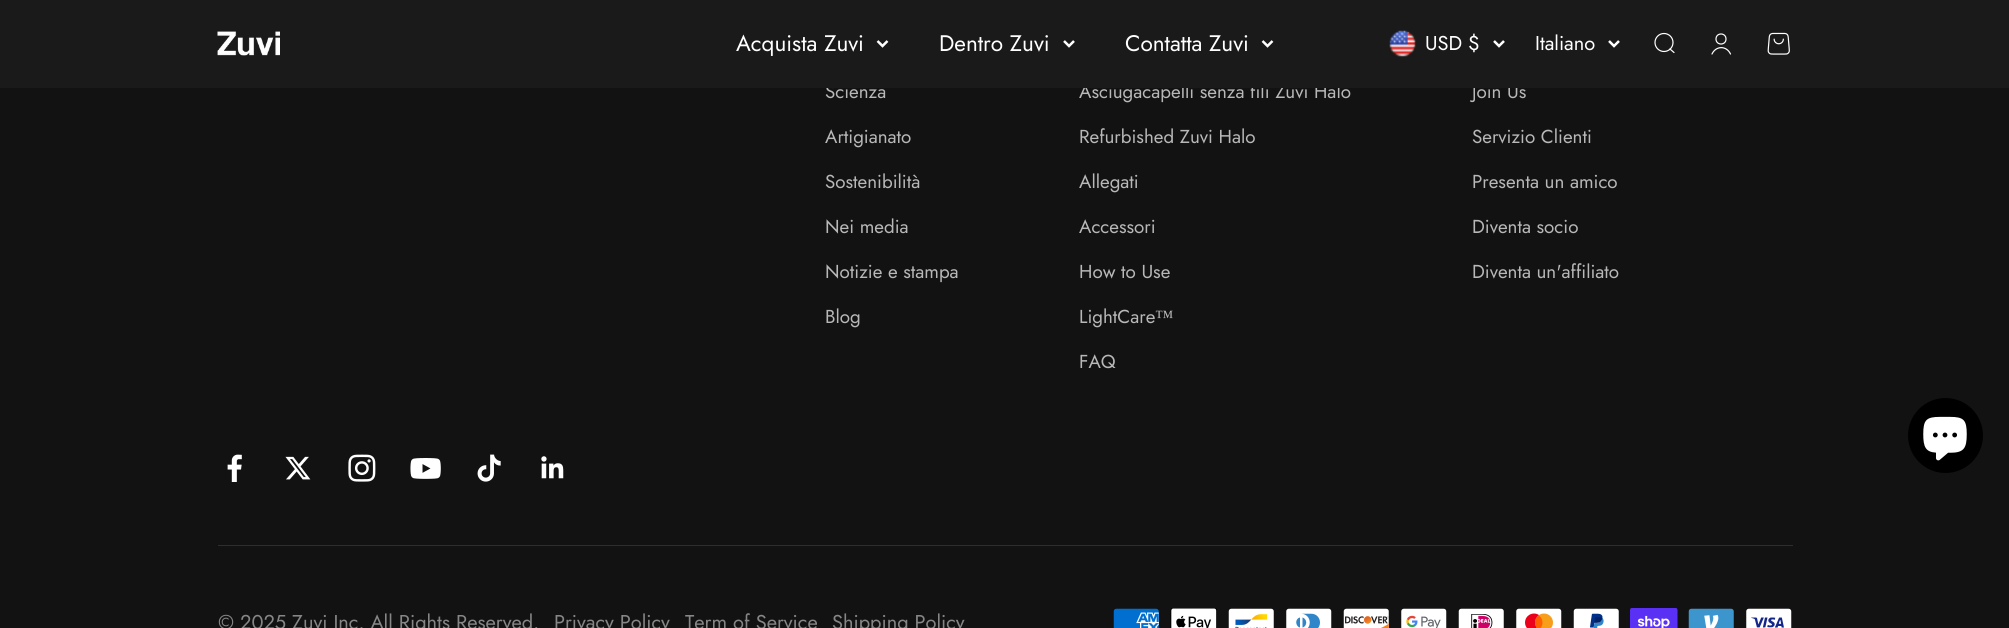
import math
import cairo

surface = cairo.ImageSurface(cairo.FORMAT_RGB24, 2009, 628)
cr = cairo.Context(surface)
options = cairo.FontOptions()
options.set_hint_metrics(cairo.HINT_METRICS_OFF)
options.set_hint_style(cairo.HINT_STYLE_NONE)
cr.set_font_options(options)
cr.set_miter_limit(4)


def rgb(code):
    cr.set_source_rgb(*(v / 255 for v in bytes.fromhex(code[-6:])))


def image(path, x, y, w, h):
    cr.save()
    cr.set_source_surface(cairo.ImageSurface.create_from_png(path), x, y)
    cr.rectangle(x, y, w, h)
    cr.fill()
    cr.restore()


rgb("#121212")
cr.paint()
image("img/4.png", 227, 454, 15, 28)
image("img/5.png", 285, 456, 26, 24)
image("img/6.png", 348, 454, 28, 28)
image("img/7.png", 410, 458, 31, 21)
image("img/8.png", 477, 454, 24, 28)
image("img/9.png", 541, 456, 23, 23)
rgb("#2e2e2e")
cr.rectangle(218, 545, 1575, 1)
cr.fill()
image("img/10.png", 1113, 608, 46, 20)
image("img/11.png", 1170, 608, 47, 20)
image("img/12.png", 1228, 608, 46, 20)
image("img/13.png", 1286, 608, 46, 20)
image("img/14.png", 1343, 608, 46, 20)
image("img/15.png", 1401, 608, 46, 20)
image("img/16.png", 1458, 608, 46, 20)
image("img/17.png", 1516, 608, 46, 20)
image("img/18.png", 1573, 608, 46, 20)
image("img/19.png", 1630, 608, 48, 20)
image("img/20.png", 1688, 608, 46, 20)
image("img/21.png", 1746, 608, 46, 20)
rgb("#000000")
cr.arc(1945.5, 435.5, 37.5, 0, 2 * math.pi)
cr.fill()
image("img/22.png", 1923, 416, 44, 45)
cr.select_font_face("Jost")
cr.set_font_size(18.75)
rgb("#b8b8b8")
for x, y, s in [
    (825, 98, "Scienza"),
    (825, 143, "Artigianato"),
    (825, 188, "Sostenibilità"),
    (825, 233, "Nei media"),
    (825, 278, "Notizie e stampa"),
    (825, 323, "Blog"),
    (1079, 98, "Asciugacapelli senza fili Zuvi Halo"),
    (1079, 143, "Refurbished Zuvi Halo"),
    (1079, 188, "Allegati"),
    (1079, 233, "Accessori"),
    (1079, 278, "How to Use"),
    (1079, 323, "LightCare"),
]:
    cr.move_to(x, y)
    cr.show_text(s)
cr.select_font_face("Liberation Serif")
cr.move_to(1155, 323)
cr.show_text("™")
cr.select_font_face("Jost")
cr.move_to(1079, 368)
cr.show_text("FAQ")
cr.move_to(1472, 98)
cr.show_text("Join Us")
rgb("#1a1a1a")
cr.rectangle(0, 0, 2009, 88)
cr.fill()
image("img/3.png", 1767, 32, 23, 23)
cr.new_path()
cr.move_to(1712, 54)
cr.curve_to(1716, 45.5, 1726.5, 45.5, 1730.5, 54)
rgb("#ffffff")
cr.set_line_width(1.2)
cr.set_line_cap(cairo.LINE_CAP_ROUND)
cr.stroke()
cr.arc(1721, 39, 5, 0, 2 * math.pi)
cr.set_line_cap(cairo.LINE_CAP_BUTT)
cr.stroke()
cr.arc(1664, 42.5, 9, 0, 2 * math.pi)
cr.stroke()
cr.new_path()
cr.move_to(1670, 49)
cr.line_to(1674, 52.5)
cr.set_line_cap(cairo.LINE_CAP_ROUND)
cr.set_line_join(cairo.LINE_JOIN_ROUND)
cr.stroke()
cr.new_path()
cr.move_to(1609, 41)
cr.line_to(1614, 46)
cr.line_to(1619, 41)
cr.set_line_width(2.5)
cr.set_line_cap(cairo.LINE_CAP_BUTT)
cr.set_line_join(cairo.LINE_JOIN_MITER)
cr.stroke()
cr.set_font_size(20)
cr.move_to(1535, 50)
cr.show_text("Italiano")
image("img/2.png", 1389, 30, 27, 27)
cr.new_path()
cr.move_to(1494, 41)
cr.line_to(1499, 46)
cr.line_to(1504, 41)
cr.stroke()
cr.move_to(1425, 50)
cr.show_text("USD $")
image("img/1.png", 217, 31, 63, 25)
cr.new_path()
cr.move_to(1262.5, 41)
cr.line_to(1267.5, 46)
cr.line_to(1272.5, 41)
cr.stroke()
cr.set_font_size(22.5)
cr.move_to(1125, 51)
cr.show_text("Contatta Zuvi")
cr.new_path()
cr.move_to(1064, 41)
cr.line_to(1069, 46)
cr.line_to(1074, 41)
cr.stroke()
cr.move_to(939, 51)
cr.show_text("Dentro Zuvi")
cr.new_path()
cr.move_to(877.5, 41)
cr.line_to(882.5, 46)
cr.line_to(887.5, 41)
cr.stroke()
cr.move_to(736, 51)
cr.show_text("Acquista Zuvi")
cr.set_font_size(18.75)
rgb("#b8b8b8")
for x, y, s in [
    (1472, 143, "Servizio Clienti"),
    (1472, 188, "Presenta un amico"),
    (1472, 233, "Diventa socio"),
    (1472, 278, "Diventa un'affiliato"),
]:
    cr.move_to(x, y)
    cr.show_text(s)
cr.set_font_size(20)
rgb("#868686")
for x, y, s in [
    (218, 629, "© 2025 Zuvi Inc. All Rights Reserved."),
    (554, 629, "Privacy Policy"),
    (685, 629, "Term of Service"),
    (832, 629, "Shipping Policy"),
]:
    cr.move_to(x, y)
    cr.show_text(s)
surface.write_to_png("page.png")
